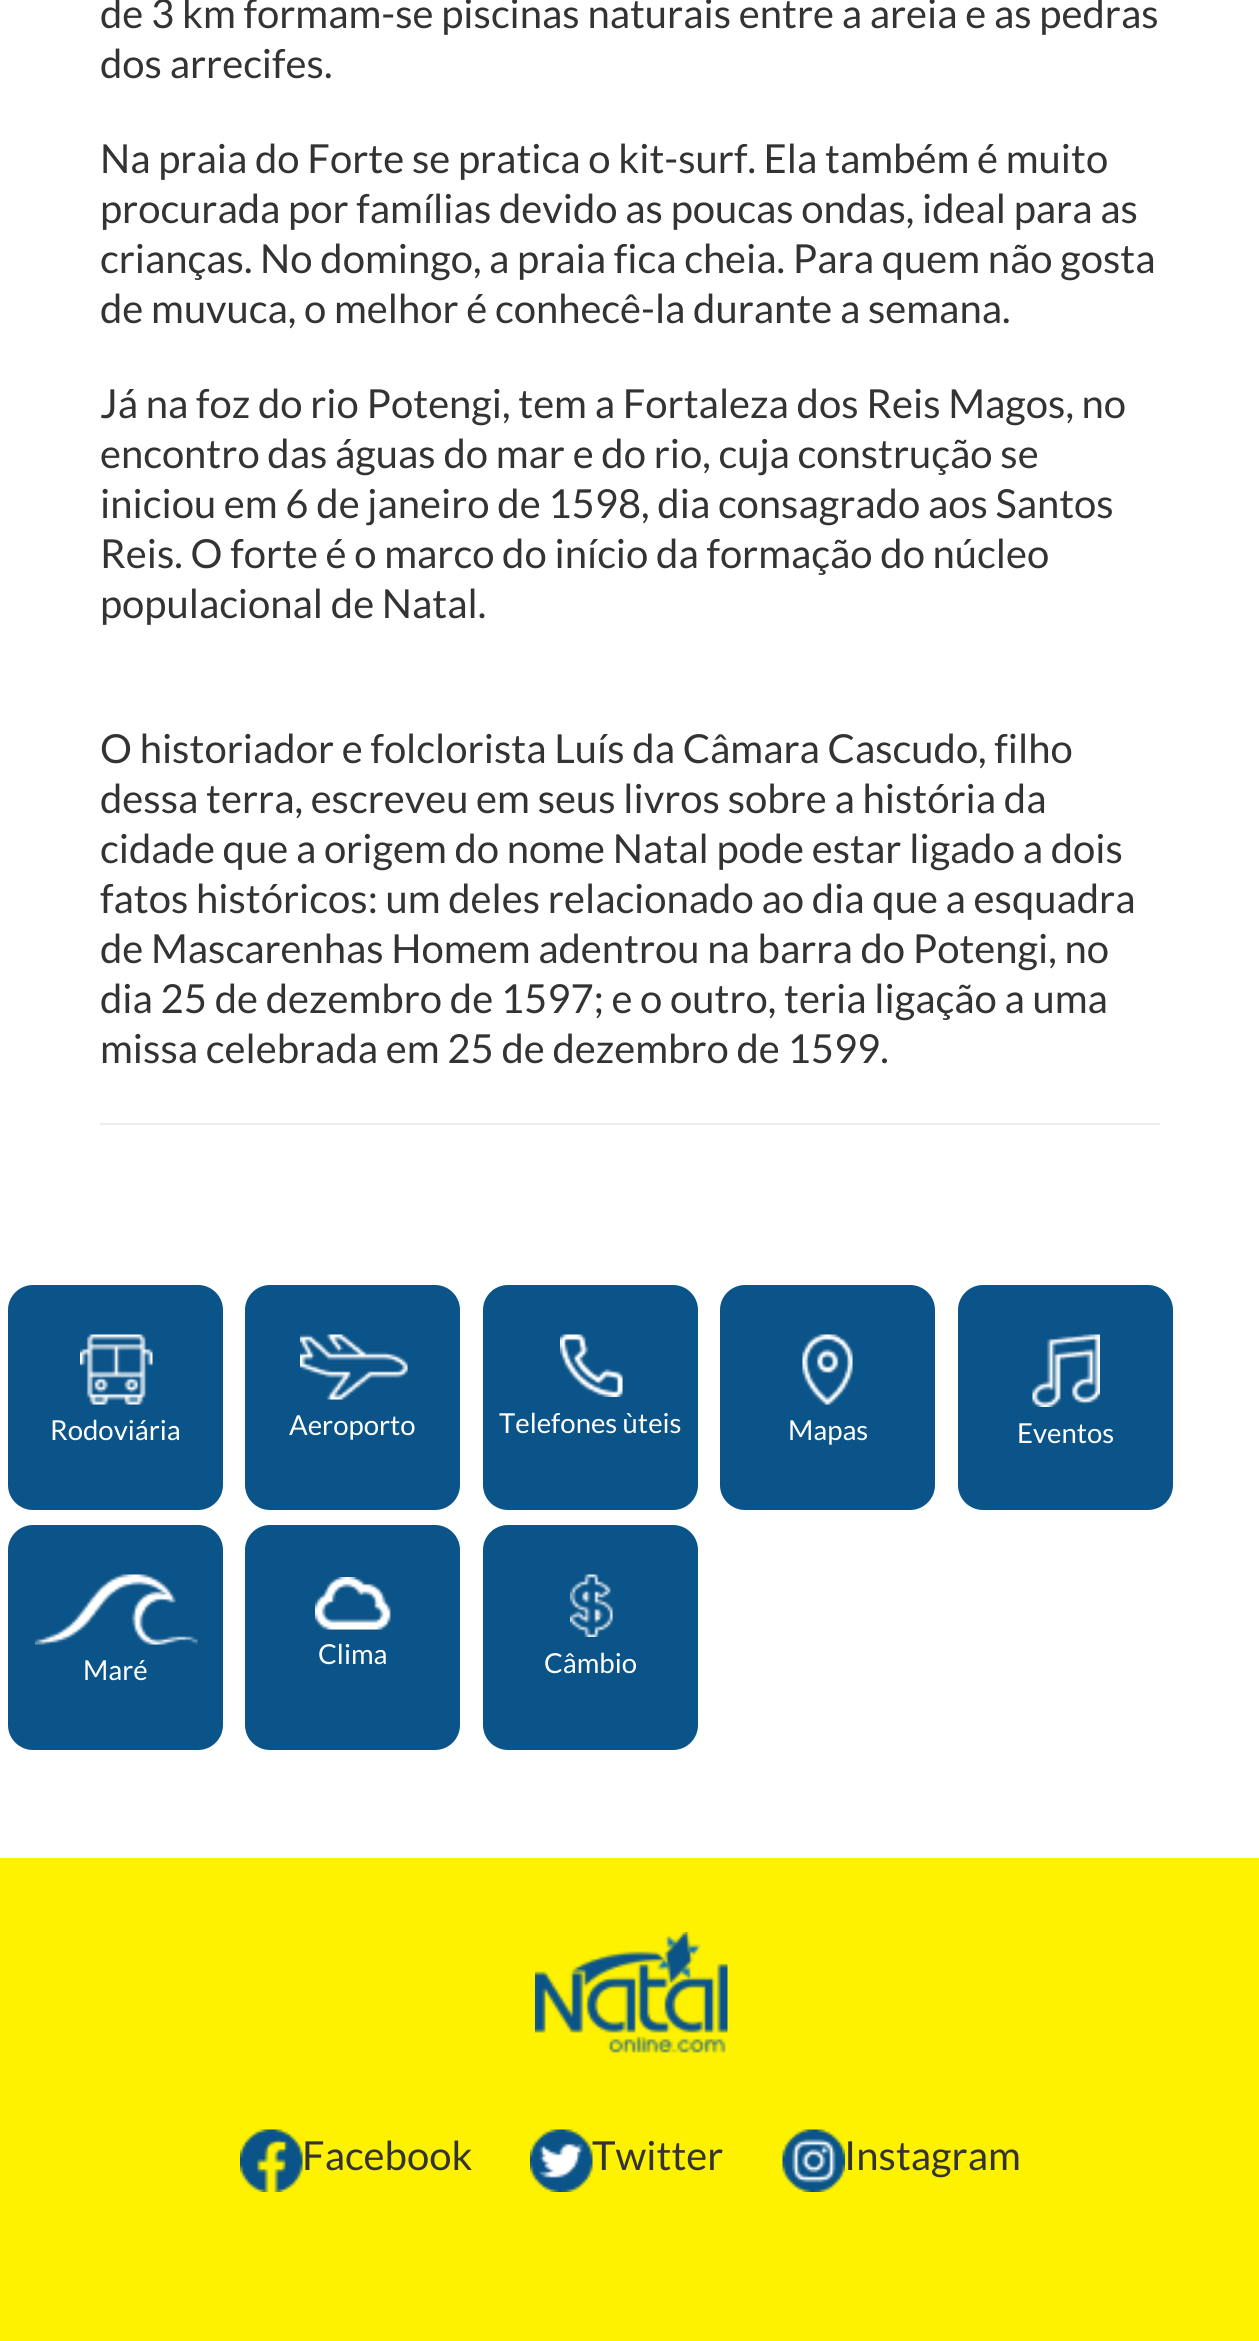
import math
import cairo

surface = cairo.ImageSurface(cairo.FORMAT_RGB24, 1259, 2341)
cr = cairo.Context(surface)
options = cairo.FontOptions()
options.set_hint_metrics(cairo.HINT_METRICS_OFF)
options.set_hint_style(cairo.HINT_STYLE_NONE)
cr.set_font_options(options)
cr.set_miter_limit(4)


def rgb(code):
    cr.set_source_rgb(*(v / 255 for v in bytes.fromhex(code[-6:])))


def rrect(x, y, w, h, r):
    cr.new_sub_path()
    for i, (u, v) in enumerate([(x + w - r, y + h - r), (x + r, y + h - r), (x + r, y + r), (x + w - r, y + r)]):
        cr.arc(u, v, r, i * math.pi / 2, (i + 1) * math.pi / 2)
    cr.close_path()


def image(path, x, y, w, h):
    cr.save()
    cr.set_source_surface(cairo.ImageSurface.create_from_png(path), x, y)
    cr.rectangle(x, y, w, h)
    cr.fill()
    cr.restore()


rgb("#ffffff")
cr.paint()
rgb("#eeeeee")
cr.rectangle(100, 1123, 1060, 2)
cr.fill()
rgb("#0b5489")
rrect(8, 1285, 215, 225, 25)
cr.fill()
image("img/1.png", 80, 1334, 73, 71)
rrect(245, 1285, 215, 225, 25)
cr.fill()
image("img/2.png", 300, 1334, 108, 66)
rrect(483, 1285, 215, 225, 25)
cr.fill()
image("img/3.png", 560, 1334, 63, 63)
rrect(720, 1285, 215, 225, 25)
cr.fill()
image("img/4.png", 802, 1334, 51, 71)
rrect(958, 1285, 215, 225, 25)
cr.fill()
image("img/5.png", 1032, 1334, 68, 73)
rrect(8, 1525, 215, 225, 25)
cr.fill()
image("img/6.png", 35, 1574, 163, 71)
rrect(245, 1525, 215, 225, 25)
cr.fill()
image("img/7.png", 315, 1577, 76, 53)
rrect(483, 1525, 215, 225, 25)
cr.fill()
image("img/8.png", 570, 1574, 43, 63)
rgb("#fff200")
cr.rectangle(0, 1858, 1259, 483)
cr.fill()
image("img/9.png", 535, 1932, 193, 121)
image("img/10.png", 240, 2129, 63, 63)
image("img/11.png", 530, 2129, 63, 63)
image("img/12.png", 782, 2129, 63, 63)
cr.select_font_face("Lato")
cr.set_font_size(40)
rgb("#333333")
for x, y, s in [
    (100, 28, "de 3 km formam-se piscinas naturais entre a areia e as pedras"),
    (100, 78, "dos arrecifes."),
    (100, 173, "Na praia do Forte se pratica o kit-surf. Ela também é muito"),
    (100, 223, "procurada por famílias devido as poucas ondas, ideal para as"),
    (100, 273, "crianças. No domingo, a praia fica cheia. Para quem não gosta"),
    (100, 323, "de muvuca, o melhor é conhecê-la durante a semana."),
    (100, 418, "Já na foz do rio Potengi, tem a Fortaleza dos Reis Magos, no"),
    (100, 468, "encontro das águas do mar e do rio, cuja construção se"),
    (100, 518, "iniciou em 6 de janeiro de 1598, dia consagrado aos Santos"),
    (100, 568, "Reis. O forte é o marco do início da formação do núcleo"),
    (100, 618, "populacional de Natal."),
    (100, 763, "O historiador e folclorista Luís da Câmara Cascudo, filho"),
    (100, 813, "dessa terra, escreveu em seus livros sobre a história da"),
    (100, 863, "cidade que a origem do nome Natal pode estar ligado a dois"),
    (100, 913, "fatos históricos: um deles relacionado ao dia que a esquadra"),
    (100, 963, "de Mascarenhas Homem adentrou na barra do Potengi, no"),
    (100, 1013, "dia 25 de dezembro de 1597; e o outro, teria ligação a uma"),
    (100, 1063, "missa celebrada em 25 de dezembro de 1599."),
]:
    cr.move_to(x, y)
    cr.show_text(s)
cr.set_font_size(27.5)
rgb("#ffffff")
for x, y, s in [
    (50, 1440, "Rodoviária"),
    (289, 1435, "Aeroporto"),
    (499, 1433, "Telefones ùteis"),
    (788, 1440, "Mapas"),
    (1017, 1443, "Eventos"),
    (83, 1680, "Maré"),
    (318, 1664, "Clima"),
    (544, 1673, "Câmbio"),
]:
    cr.move_to(x, y)
    cr.show_text(s)
cr.set_font_size(40)
rgb("#333333")
for x, y, s in [
    (302, 2170, "Facebook"),
    (592, 2170, "Twitter"),
    (844, 2170, "Instagram"),
]:
    cr.move_to(x, y)
    cr.show_text(s)
surface.write_to_png("page.png")
